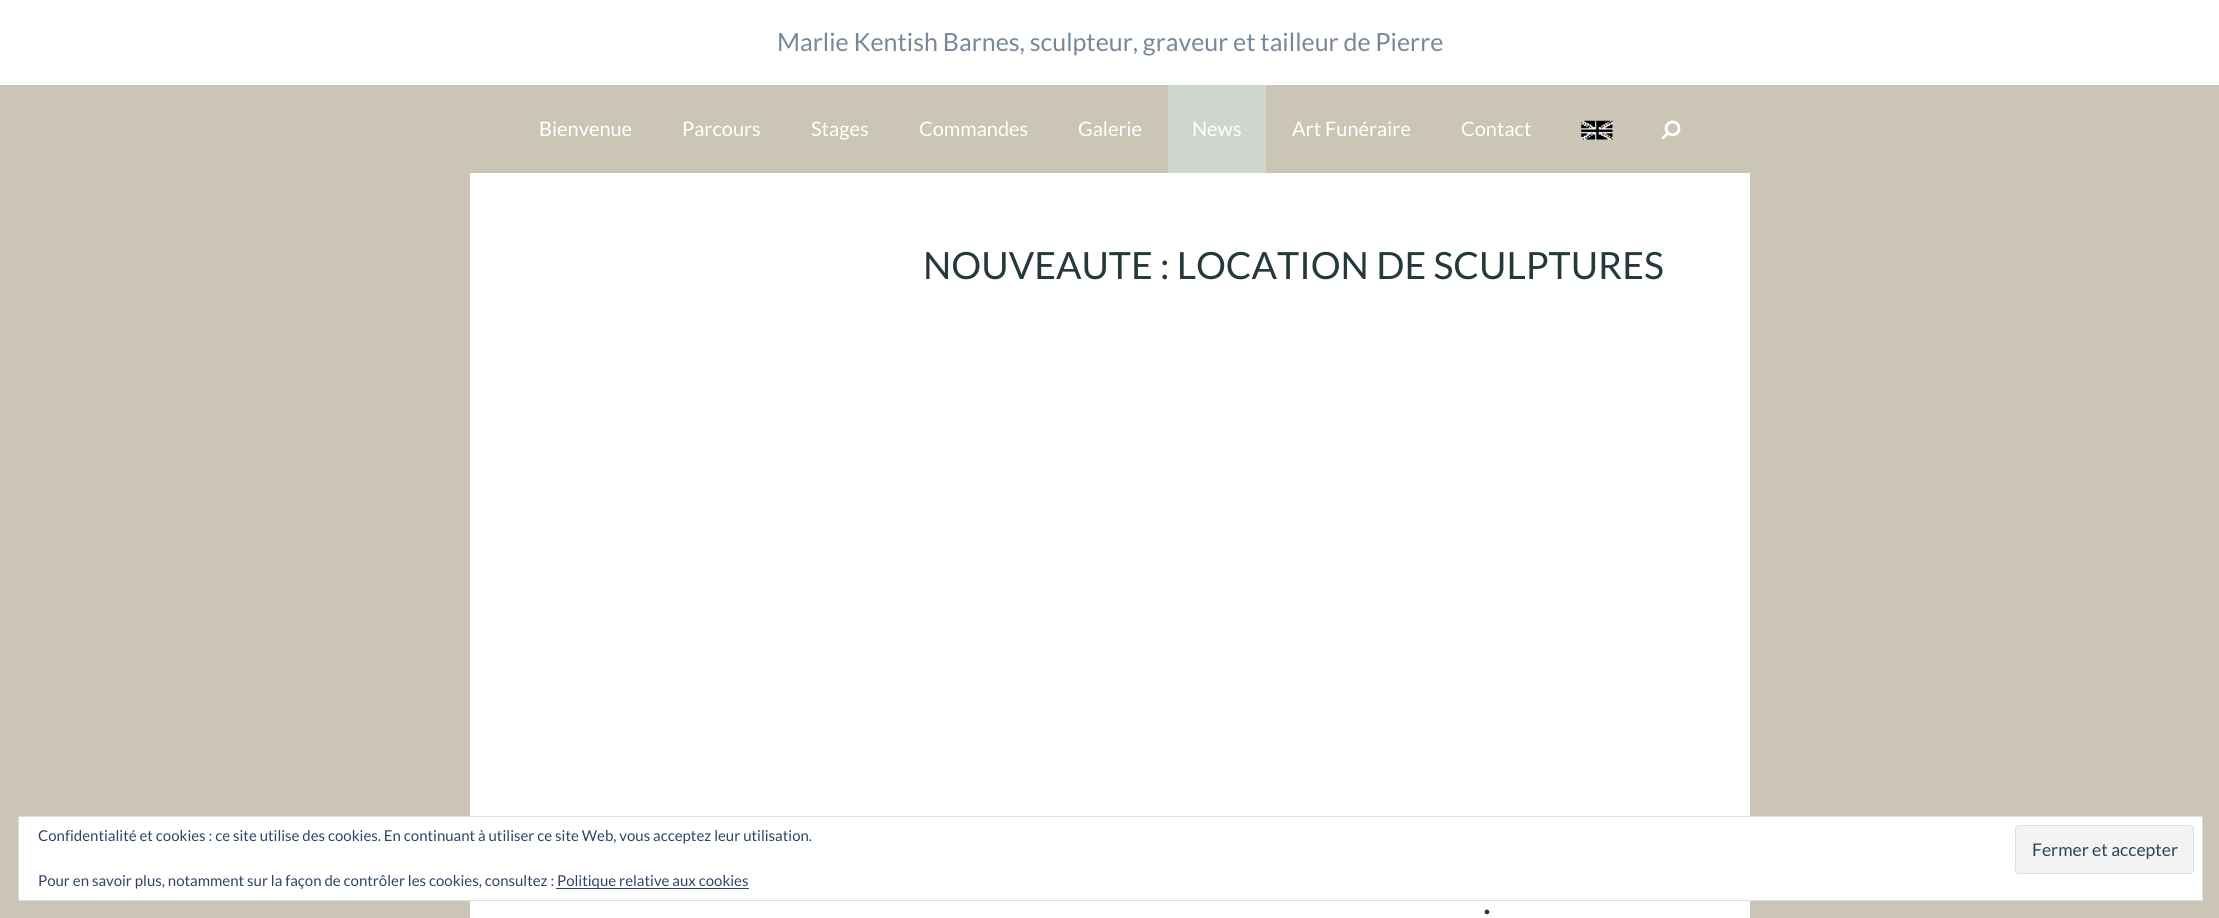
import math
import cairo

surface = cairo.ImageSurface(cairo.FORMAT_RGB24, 2219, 918)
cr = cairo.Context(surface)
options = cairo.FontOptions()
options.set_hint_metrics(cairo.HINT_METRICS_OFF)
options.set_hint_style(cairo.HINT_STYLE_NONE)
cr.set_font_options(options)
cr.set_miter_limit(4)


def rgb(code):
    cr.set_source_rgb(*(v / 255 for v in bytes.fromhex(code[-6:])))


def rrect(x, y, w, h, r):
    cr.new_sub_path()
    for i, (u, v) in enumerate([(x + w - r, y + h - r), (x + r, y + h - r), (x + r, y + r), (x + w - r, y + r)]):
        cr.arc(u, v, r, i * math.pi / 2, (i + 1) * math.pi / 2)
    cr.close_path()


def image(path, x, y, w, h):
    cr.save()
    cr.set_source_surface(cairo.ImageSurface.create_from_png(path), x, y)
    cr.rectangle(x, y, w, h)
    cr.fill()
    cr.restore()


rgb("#cac5b4")
cr.paint()
rgb("#ffffff")
cr.rectangle(0, 0, 2219, 85)
cr.fill()
rgb("#d1d5d0")
cr.rectangle(1168, 85, 98, 88)
cr.fill()
image("img/1.png", 1581, 120, 32, 20)
image("img/2.png", 1661, 120, 20, 19)
rgb("#ffffff")
cr.rectangle(470, 173, 1280, 745)
cr.fill()
cr.rectangle(18.5, 816.5, 2184, 84)
cr.fill_preserve()
rgb("#dedede")
cr.set_line_width(1)
cr.stroke()
rgb("#f3f3f3")
rrect(2015.5, 825.5, 178, 48, 3.5)
cr.fill_preserve()
rgb("#dedede")
cr.stroke()
rgb("#2e4467")
cr.rectangle(556, 888, 193, 1)
cr.fill()
cr.select_font_face("Lato")
cr.set_font_size(25)
rgb("#778899")
cr.move_to(777, 51)
cr.show_text("Marlie Kentish Barnes, sculpteur, graveur et tailleur de Pierre")
cr.set_font_size(20)
rgb("#ffffff")
for x, y, s in [
    (539, 136, "Bienvenue"),
    (682, 136, "Parcours"),
    (811, 136, "Stages"),
    (919, 136, "Commandes"),
    (1078, 136, "Galerie"),
    (1192, 136, "News"),
    (1292, 136, "Art Funéraire"),
    (1461, 136, "Contact"),
]:
    cr.move_to(x, y)
    cr.show_text(s)
cr.set_font_size(37.5)
rgb("#25383c")
cr.move_to(923, 279)
cr.show_text("NOUVEAUTE : LOCATION DE SCULPTURES")
cr.move_to(1483, 914)
cr.show_text(".")
cr.set_font_size(15)
rgb("#2e4467")
cr.move_to(38, 841)
cr.show_text("Confidentialité et cookies : ce site utilise des cookies. En continuant à utiliser ce site Web, vous acceptez leur utilisation.")
cr.set_font_size(17.5)
rgb("#2e4453")
cr.move_to(2032, 856)
cr.show_text("Fermer et accepter")
cr.set_font_size(15)
rgb("#2e4467")
cr.move_to(38, 886)
cr.show_text("Pour en savoir plus, notamment sur la façon de contrôler les cookies, consultez :")
cr.move_to(557, 886)
cr.show_text("Politique relative aux cookies")
surface.write_to_png("page.png")
